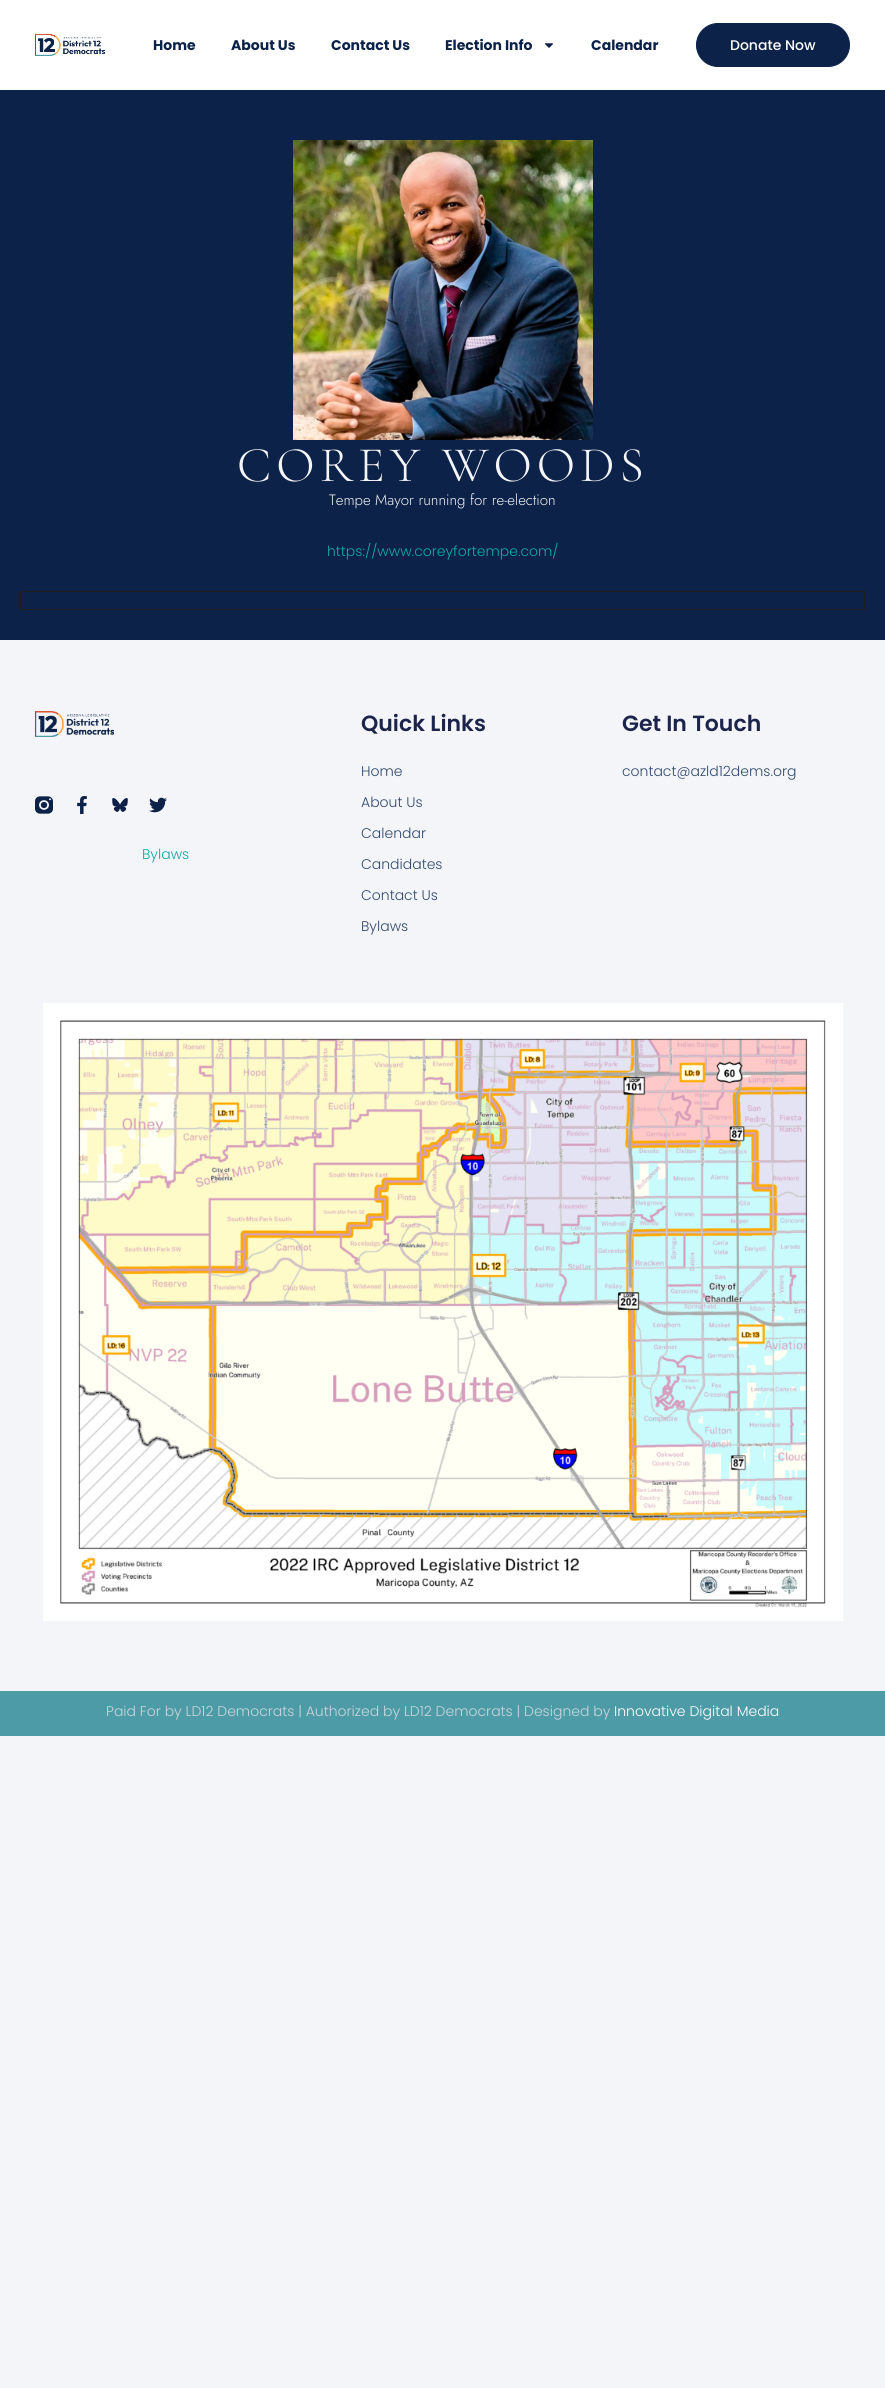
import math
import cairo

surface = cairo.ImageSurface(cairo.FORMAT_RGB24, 885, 2388)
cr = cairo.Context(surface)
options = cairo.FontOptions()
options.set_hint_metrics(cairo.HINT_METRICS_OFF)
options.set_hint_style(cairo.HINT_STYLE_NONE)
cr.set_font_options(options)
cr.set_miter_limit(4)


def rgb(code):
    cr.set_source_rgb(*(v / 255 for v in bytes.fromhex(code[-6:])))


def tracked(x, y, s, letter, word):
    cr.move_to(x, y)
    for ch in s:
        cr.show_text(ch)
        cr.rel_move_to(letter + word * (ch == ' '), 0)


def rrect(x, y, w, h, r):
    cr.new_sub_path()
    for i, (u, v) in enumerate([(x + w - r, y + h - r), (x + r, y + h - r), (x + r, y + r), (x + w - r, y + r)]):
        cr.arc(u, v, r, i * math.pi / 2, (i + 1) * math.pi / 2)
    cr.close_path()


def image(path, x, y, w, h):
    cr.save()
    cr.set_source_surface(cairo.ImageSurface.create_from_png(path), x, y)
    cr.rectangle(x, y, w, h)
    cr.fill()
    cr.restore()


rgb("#f3f5f8")
cr.paint()
rgb("#ffffff")
cr.rectangle(0, 0, 885, 90)
cr.fill()
image("img/1.png", 35, 33, 70, 23)
image("img/2.png", 545, 43, 8, 5)
rgb("#0c2248")
rrect(696.5, 23.5, 153, 43, 21.5)
cr.fill_preserve()
cr.set_line_width(1)
cr.stroke()
cr.rectangle(0, 90, 885, 550)
cr.fill()
image("img/3.png", 293, 140, 300, 300)
cr.rectangle(20.5, 591.5, 844, 18)
rgb("#1e1e1e")
cr.stroke()
image("img/4.png", 35, 711, 79, 26)
image("img/5.png", 35, 796, 18, 18)
image("img/6.png", 77, 796, 10, 18)
image("img/7.png", 112, 798, 16, 14)
image("img/8.png", 149, 797, 18, 16)
image("img/9.png", 43, 1003, 800, 618)
rgb("#4c9ba7")
cr.rectangle(0, 1691, 885, 45)
cr.fill()
cr.select_font_face("Poppins", cairo.FONT_SLANT_NORMAL, cairo.FONT_WEIGHT_BOLD)
cr.set_font_size(14)
rgb("#0c2248")
for x, y, s in [
    (153, 50, "Home"),
    (231, 50, "About Us"),
    (331, 50, "Contact Us"),
    (445, 50, "Election Info"),
    (591, 50, "Calendar"),
]:
    cr.move_to(x, y)
    cr.show_text(s)
cr.select_font_face("Poppins Medium")
rgb("#ffffff")
cr.move_to(730, 50)
cr.show_text("Donate Now")
cr.select_font_face("Cormorant Garamond Light")
cr.set_font_size(50)
rgb("#f3f5f8")
tracked(237, 481, "COREY WOODS", 5, 0)
cr.select_font_face("Jost Light")
cr.set_font_size(15)
cr.move_to(329, 505)
cr.show_text("Tempe Mayor running for re-election")
cr.select_font_face("Poppins Light")
cr.set_font_size(14)
rgb("#13a8a6")
cr.move_to(327, 556)
cr.show_text("https://www.coreyfortempe.com/")
cr.select_font_face("Poppins SemiBold")
cr.set_font_size(22)
rgb("#1c244b")
cr.move_to(361, 731)
cr.show_text("Quick Links")
cr.select_font_face("Poppins Light")
cr.set_font_size(14)
rgb("#324a6d")
for x, y, s in [
    (361, 776, "Home"),
    (361, 807, "About Us"),
    (361, 838, "Calendar"),
    (361, 869, "Candidates"),
    (361, 900, "Contact Us"),
    (361, 931, "Bylaws"),
]:
    cr.move_to(x, y)
    cr.show_text(s)
cr.select_font_face("Poppins SemiBold")
cr.set_font_size(22)
rgb("#1c244b")
cr.move_to(622, 731)
cr.show_text("Get In Touch")
cr.select_font_face("Poppins Light")
cr.set_font_size(14)
rgb("#324a6d")
cr.move_to(622, 776)
cr.show_text("contact@azld12dems.org")
rgb("#13a8a6")
cr.move_to(142, 859)
cr.show_text("Bylaws")
rgb("#c8d5dc")
cr.move_to(106, 1716)
cr.show_text("Paid For by LD12 Democrats | Authorized by LD12 Democrats | Designed by")
rgb("#ffffff")
cr.move_to(614, 1716)
cr.show_text("Innovative Digital Media")
surface.write_to_png("page.png")
